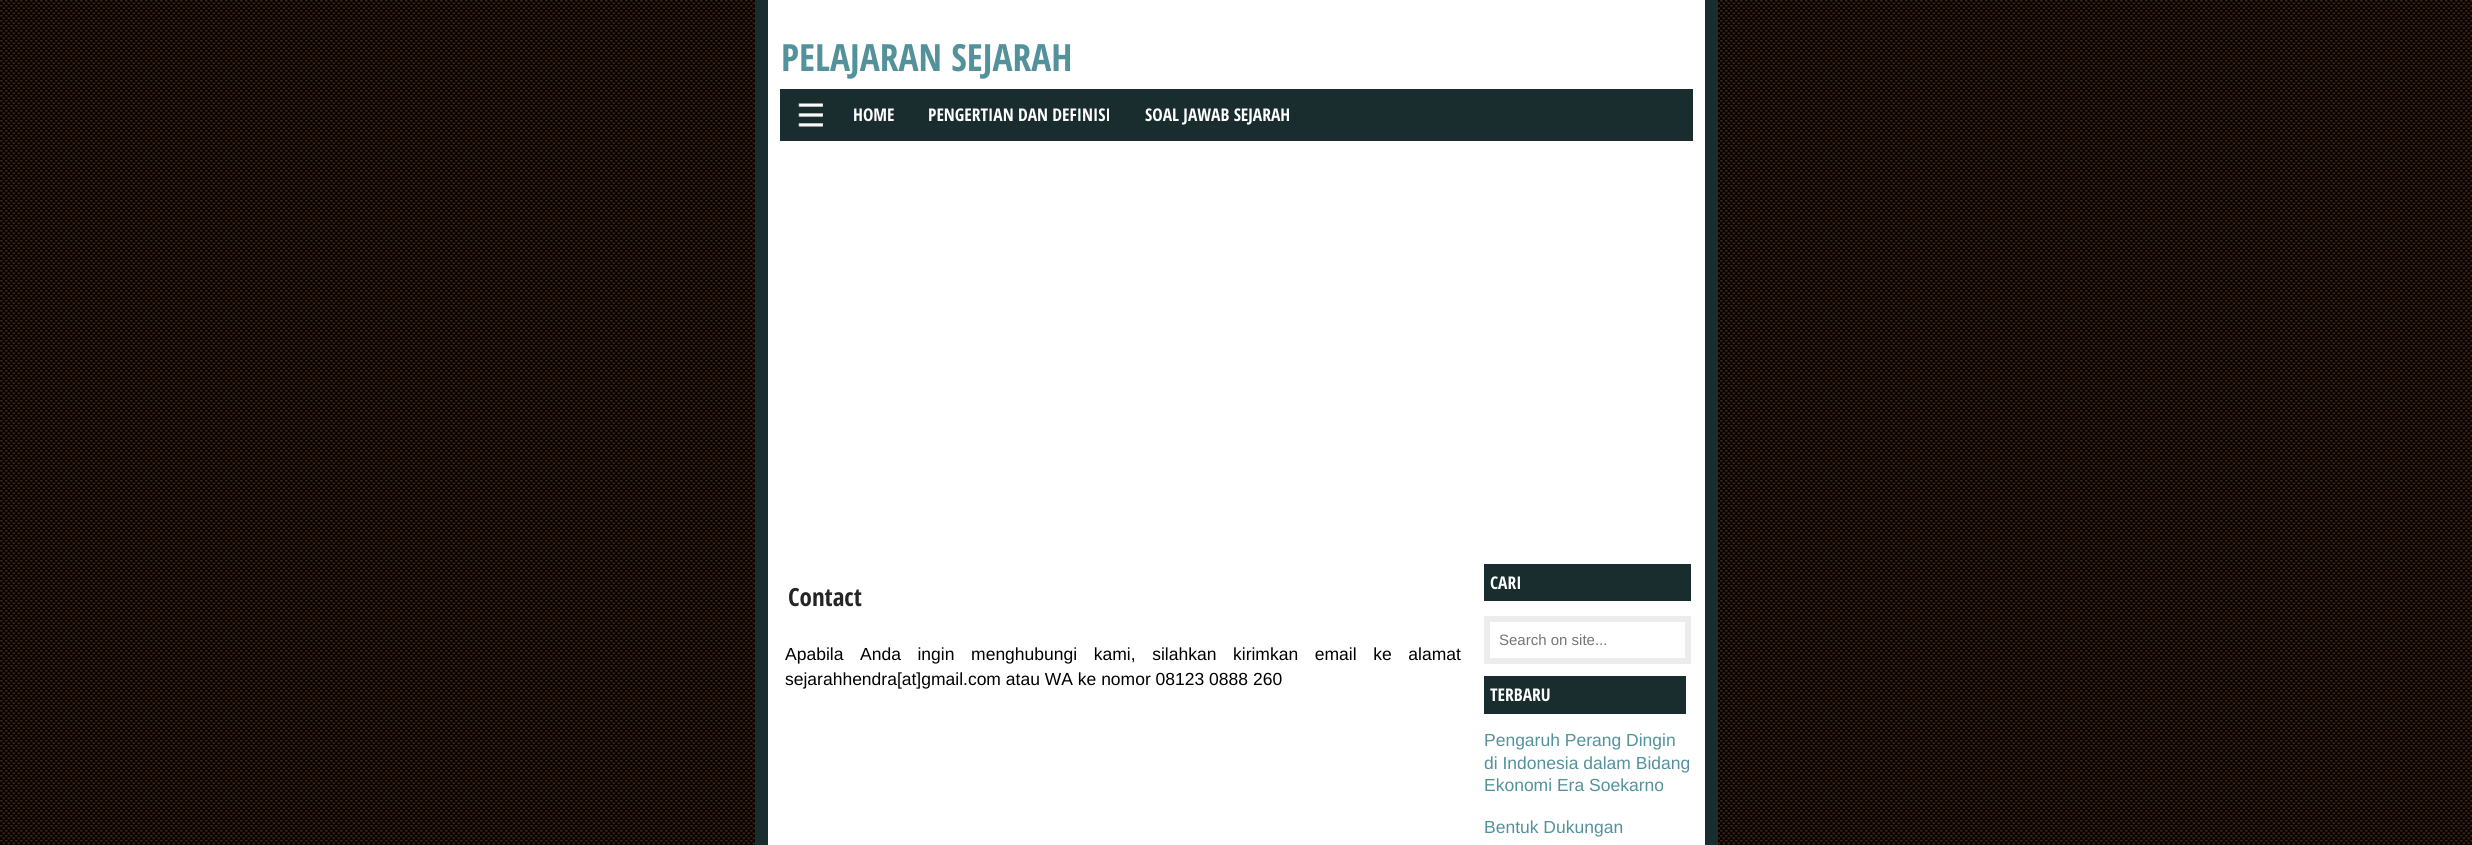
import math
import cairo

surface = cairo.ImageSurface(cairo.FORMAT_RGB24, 2472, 845)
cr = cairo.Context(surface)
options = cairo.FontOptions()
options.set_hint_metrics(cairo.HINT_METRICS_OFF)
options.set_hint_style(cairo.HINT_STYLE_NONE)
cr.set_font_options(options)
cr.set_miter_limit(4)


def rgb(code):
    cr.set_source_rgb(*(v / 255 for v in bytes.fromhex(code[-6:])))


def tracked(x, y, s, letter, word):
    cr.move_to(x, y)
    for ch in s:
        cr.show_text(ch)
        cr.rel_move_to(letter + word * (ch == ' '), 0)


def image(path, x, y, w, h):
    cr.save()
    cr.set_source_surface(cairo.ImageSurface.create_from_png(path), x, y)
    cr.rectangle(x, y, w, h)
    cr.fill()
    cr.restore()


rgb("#ffffff")
cr.paint()
image("img/1.png", 0, 0, 2472, 845)
for x, y, w, h, color in [
    (768, 0, 937, 845, "#ffffff"),
    (1705, 0, 13, 845, "#192d2e"),
    (755, 0, 13, 845, "#192d2e"),
    (780, 89, 913, 52, "#192d2e"),
]:
    rgb(color)
    cr.rectangle(x, y, w, h)
    cr.fill()
image("img/2.png", 798, 103, 25, 24)
cr.rectangle(1484, 564, 207, 37)
cr.fill()
cr.rectangle(1487, 619, 201, 42)
rgb("#ececec")
cr.set_line_width(6)
cr.stroke()
rgb("#192d2e")
cr.rectangle(1484, 676, 202, 38)
cr.fill()
cr.select_font_face("Open Sans Condensed", cairo.FONT_SLANT_NORMAL, cairo.FONT_WEIGHT_BOLD)
cr.set_font_size(37.5)
rgb("#53929b")
cr.move_to(781, 71)
cr.show_text("PELAJARAN SEJARAH")
cr.set_font_size(17.5)
rgb("#ffffff")
for x, y, s in [
    (853, 121, "HOME"),
    (928, 121, "PENGERTIAN DAN DEFINISI"),
    (1145, 121, "SOAL JAWAB SEJARAH"),
]:
    cr.move_to(x, y)
    cr.show_text(s)
cr.set_font_size(25)
rgb("#252525")
cr.move_to(788, 606)
cr.show_text("Contact")
cr.select_font_face("Liberation Sans")
cr.set_font_size(17.5)
rgb("#000000")
tracked(785, 660, "Apabila Anda ingin menghubungi kami, silahkan kirimkan email ke alamat", 0, 11.75)
cr.move_to(785, 685)
cr.show_text("sejarahhendra[at]gmail.com atau WA ke nomor 08123 0888 260")
cr.select_font_face("Open Sans Condensed", cairo.FONT_SLANT_NORMAL, cairo.FONT_WEIGHT_BOLD)
rgb("#ffffff")
cr.move_to(1490, 589)
cr.show_text("CARI")
cr.select_font_face("Liberation Sans")
cr.set_font_size(15)
rgb("#757575")
cr.move_to(1499, 645)
cr.show_text("Search on site...")
cr.select_font_face("Open Sans Condensed", cairo.FONT_SLANT_NORMAL, cairo.FONT_WEIGHT_BOLD)
cr.set_font_size(17.5)
rgb("#ffffff")
cr.move_to(1490, 701)
cr.show_text("TERBARU")
cr.select_font_face("Liberation Sans")
rgb("#53929b")
for x, y, s in [
    (1484, 746, "Pengaruh Perang Dingin"),
    (1484, 769, "di Indonesia dalam Bidang"),
    (1484, 791, "Ekonomi Era Soekarno"),
    (1484, 833, "Bentuk Dukungan"),
]:
    cr.move_to(x, y)
    cr.show_text(s)
surface.write_to_png("page.png")
